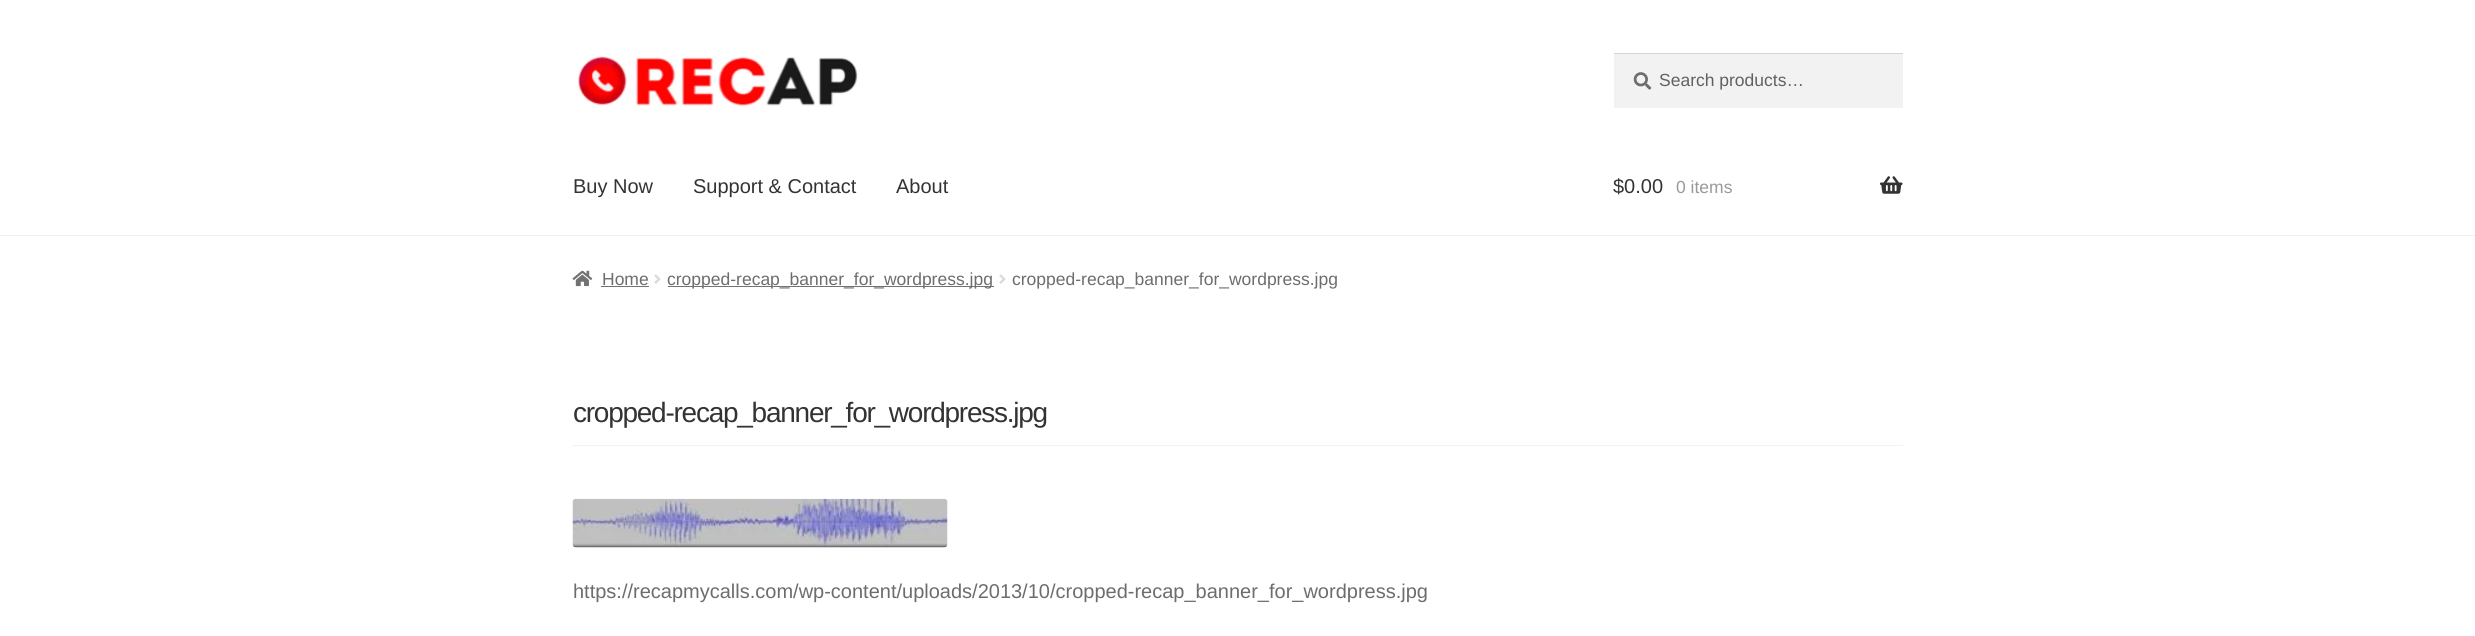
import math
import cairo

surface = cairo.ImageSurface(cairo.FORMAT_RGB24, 2475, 636)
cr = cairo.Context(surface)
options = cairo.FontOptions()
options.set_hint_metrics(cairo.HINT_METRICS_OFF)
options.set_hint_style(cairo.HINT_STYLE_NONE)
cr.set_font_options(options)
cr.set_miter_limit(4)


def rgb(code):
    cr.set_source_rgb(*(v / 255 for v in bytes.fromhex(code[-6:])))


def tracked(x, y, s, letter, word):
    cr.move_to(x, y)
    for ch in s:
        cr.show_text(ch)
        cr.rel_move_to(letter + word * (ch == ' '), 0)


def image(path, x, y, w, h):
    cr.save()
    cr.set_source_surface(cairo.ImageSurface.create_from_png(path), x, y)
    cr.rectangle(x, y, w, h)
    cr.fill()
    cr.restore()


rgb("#ffffff")
cr.paint()
rgb("#f0f0f0")
cr.rectangle(0, 235, 2475, 1)
cr.fill()
image("img/1.png", 577, 56, 281, 51)
rgb("#f2f2f2")
cr.rectangle(1614, 54, 289, 54)
cr.fill()
image("img/2.png", 1633, 72, 19, 18)
rgb("#d4d4d4")
cr.rectangle(1614, 53, 289, 1)
cr.fill()
image("img/3.png", 1880, 176, 23, 18)
image("img/4.png", 572, 270, 21, 17)
rgb("#727272")
cr.rectangle(601, 286, 48, 1)
cr.fill()
image("img/5.png", 654, 274, 7, 10)
cr.rectangle(668, 286, 326, 1)
cr.fill()
image("img/5.png", 999, 274, 7, 10)
rgb("#f2f2f2")
cr.rectangle(573, 445, 1330, 1)
cr.fill()
image("img/6.png", 572, 498, 376, 50)
cr.select_font_face("Liberation Sans")
cr.set_font_size(17.5)
rgb("#616161")
cr.move_to(1659, 86)
cr.show_text("Search products…")
cr.set_font_size(20)
rgb("#333333")
for x, y, s in [
    (573, 193, "Buy Now"),
    (693, 193, "Support & Contact"),
    (896, 193, "About"),
    (1613, 193, "$0.00"),
]:
    cr.move_to(x, y)
    cr.show_text(s)
cr.set_font_size(17.5)
rgb("#999999")
cr.move_to(1676, 193)
cr.show_text("0 items")
rgb("#6d6d6d")
for x, y, s in [
    (602, 285, "Home"),
    (667, 285, "cropped-recap_banner_for_wordpress.jpg"),
    (1012, 285, "cropped-recap_banner_for_wordpress.jpg"),
]:
    cr.move_to(x, y)
    cr.show_text(s)
cr.set_font_size(28)
rgb("#333333")
tracked(573, 422, "cropped-recap_banner_for_wordpress.jpg", -1.25, 0)
cr.set_font_size(20)
rgb("#6d6d6d")
cr.move_to(573, 598)
cr.show_text("https://recapmycalls.com/wp-content/uploads/2013/10/cropped-recap_banner_for_wordpress.jpg")
surface.write_to_png("page.png")
